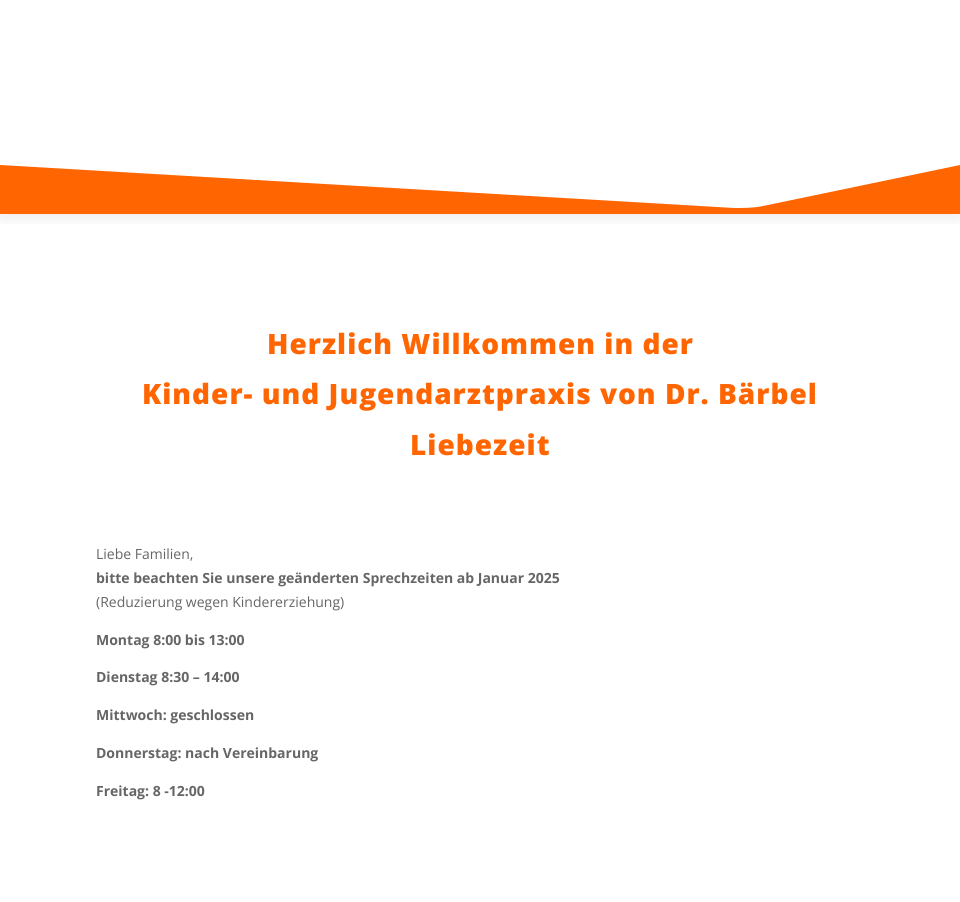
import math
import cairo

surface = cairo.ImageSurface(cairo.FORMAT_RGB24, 960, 902)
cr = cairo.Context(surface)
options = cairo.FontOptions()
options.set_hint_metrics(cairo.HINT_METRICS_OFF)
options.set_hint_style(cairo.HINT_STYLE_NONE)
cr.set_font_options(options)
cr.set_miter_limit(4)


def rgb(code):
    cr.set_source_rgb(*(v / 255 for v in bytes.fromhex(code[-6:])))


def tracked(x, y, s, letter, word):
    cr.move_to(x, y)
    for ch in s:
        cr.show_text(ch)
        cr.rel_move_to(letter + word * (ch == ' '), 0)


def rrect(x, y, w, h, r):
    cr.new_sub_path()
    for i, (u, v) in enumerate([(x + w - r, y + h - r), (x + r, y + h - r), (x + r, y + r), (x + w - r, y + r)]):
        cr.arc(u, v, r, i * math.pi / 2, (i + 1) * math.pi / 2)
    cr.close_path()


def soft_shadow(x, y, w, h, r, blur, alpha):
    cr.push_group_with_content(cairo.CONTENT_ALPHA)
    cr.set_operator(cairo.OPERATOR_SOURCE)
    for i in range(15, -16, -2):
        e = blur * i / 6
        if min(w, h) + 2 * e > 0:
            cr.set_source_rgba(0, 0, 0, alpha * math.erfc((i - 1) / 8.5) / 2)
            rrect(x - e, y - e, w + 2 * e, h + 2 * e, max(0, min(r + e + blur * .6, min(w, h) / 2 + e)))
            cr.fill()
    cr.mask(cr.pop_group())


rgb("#ffffff")
cr.paint()
cr.save()
cr.rectangle(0, 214, 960, 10)
cr.clip()
rgb("#000000")
soft_shadow(0, 2, 960, 214, 0, 9, 0.1)
cr.restore()
rgb("#ff6501")
cr.new_path()
cr.move_to(960, 165)
cr.line_to(763, 206)
cr.curve_to(754, 208, 744, 208, 734, 208)
cr.line_to(0, 165)
cr.line_to(0, 214)
cr.line_to(960, 214)
cr.close_path()
cr.fill()
cr.select_font_face("Open Sans ExtraBold")
cr.set_font_size(28)
for x, y, s in [
    (267, 354, "Herzlich Willkommen in der"),
    (142, 404, "Kinder- und Jugendarztpraxis von Dr. Bärbel"),
    (410, 455, "Liebezeit"),
]:
    tracked(x, y, s, 1, 0)
cr.select_font_face("Open Sans")
cr.set_font_size(14)
rgb("#666666")
cr.move_to(96, 559)
cr.show_text("Liebe Familien,")
cr.select_font_face("Open Sans", cairo.FONT_SLANT_NORMAL, cairo.FONT_WEIGHT_BOLD)
cr.move_to(96, 583)
cr.show_text("bitte beachten Sie unsere geänderten Sprechzeiten ab Januar 2025")
cr.select_font_face("Open Sans")
cr.move_to(96, 607)
cr.show_text("(Reduzierung wegen Kindererziehung)")
cr.select_font_face("Open Sans", cairo.FONT_SLANT_NORMAL, cairo.FONT_WEIGHT_BOLD)
for x, y, s in [
    (96, 645, "Montag 8:00 bis 13:00"),
    (96, 682, "Dienstag 8:30 – 14:00"),
    (96, 720, "Mittwoch: geschlossen"),
    (96, 758, "Donnerstag: nach Vereinbarung"),
    (96, 796, "Freitag: 8 -12:00"),
]:
    cr.move_to(x, y)
    cr.show_text(s)
surface.write_to_png("page.png")
